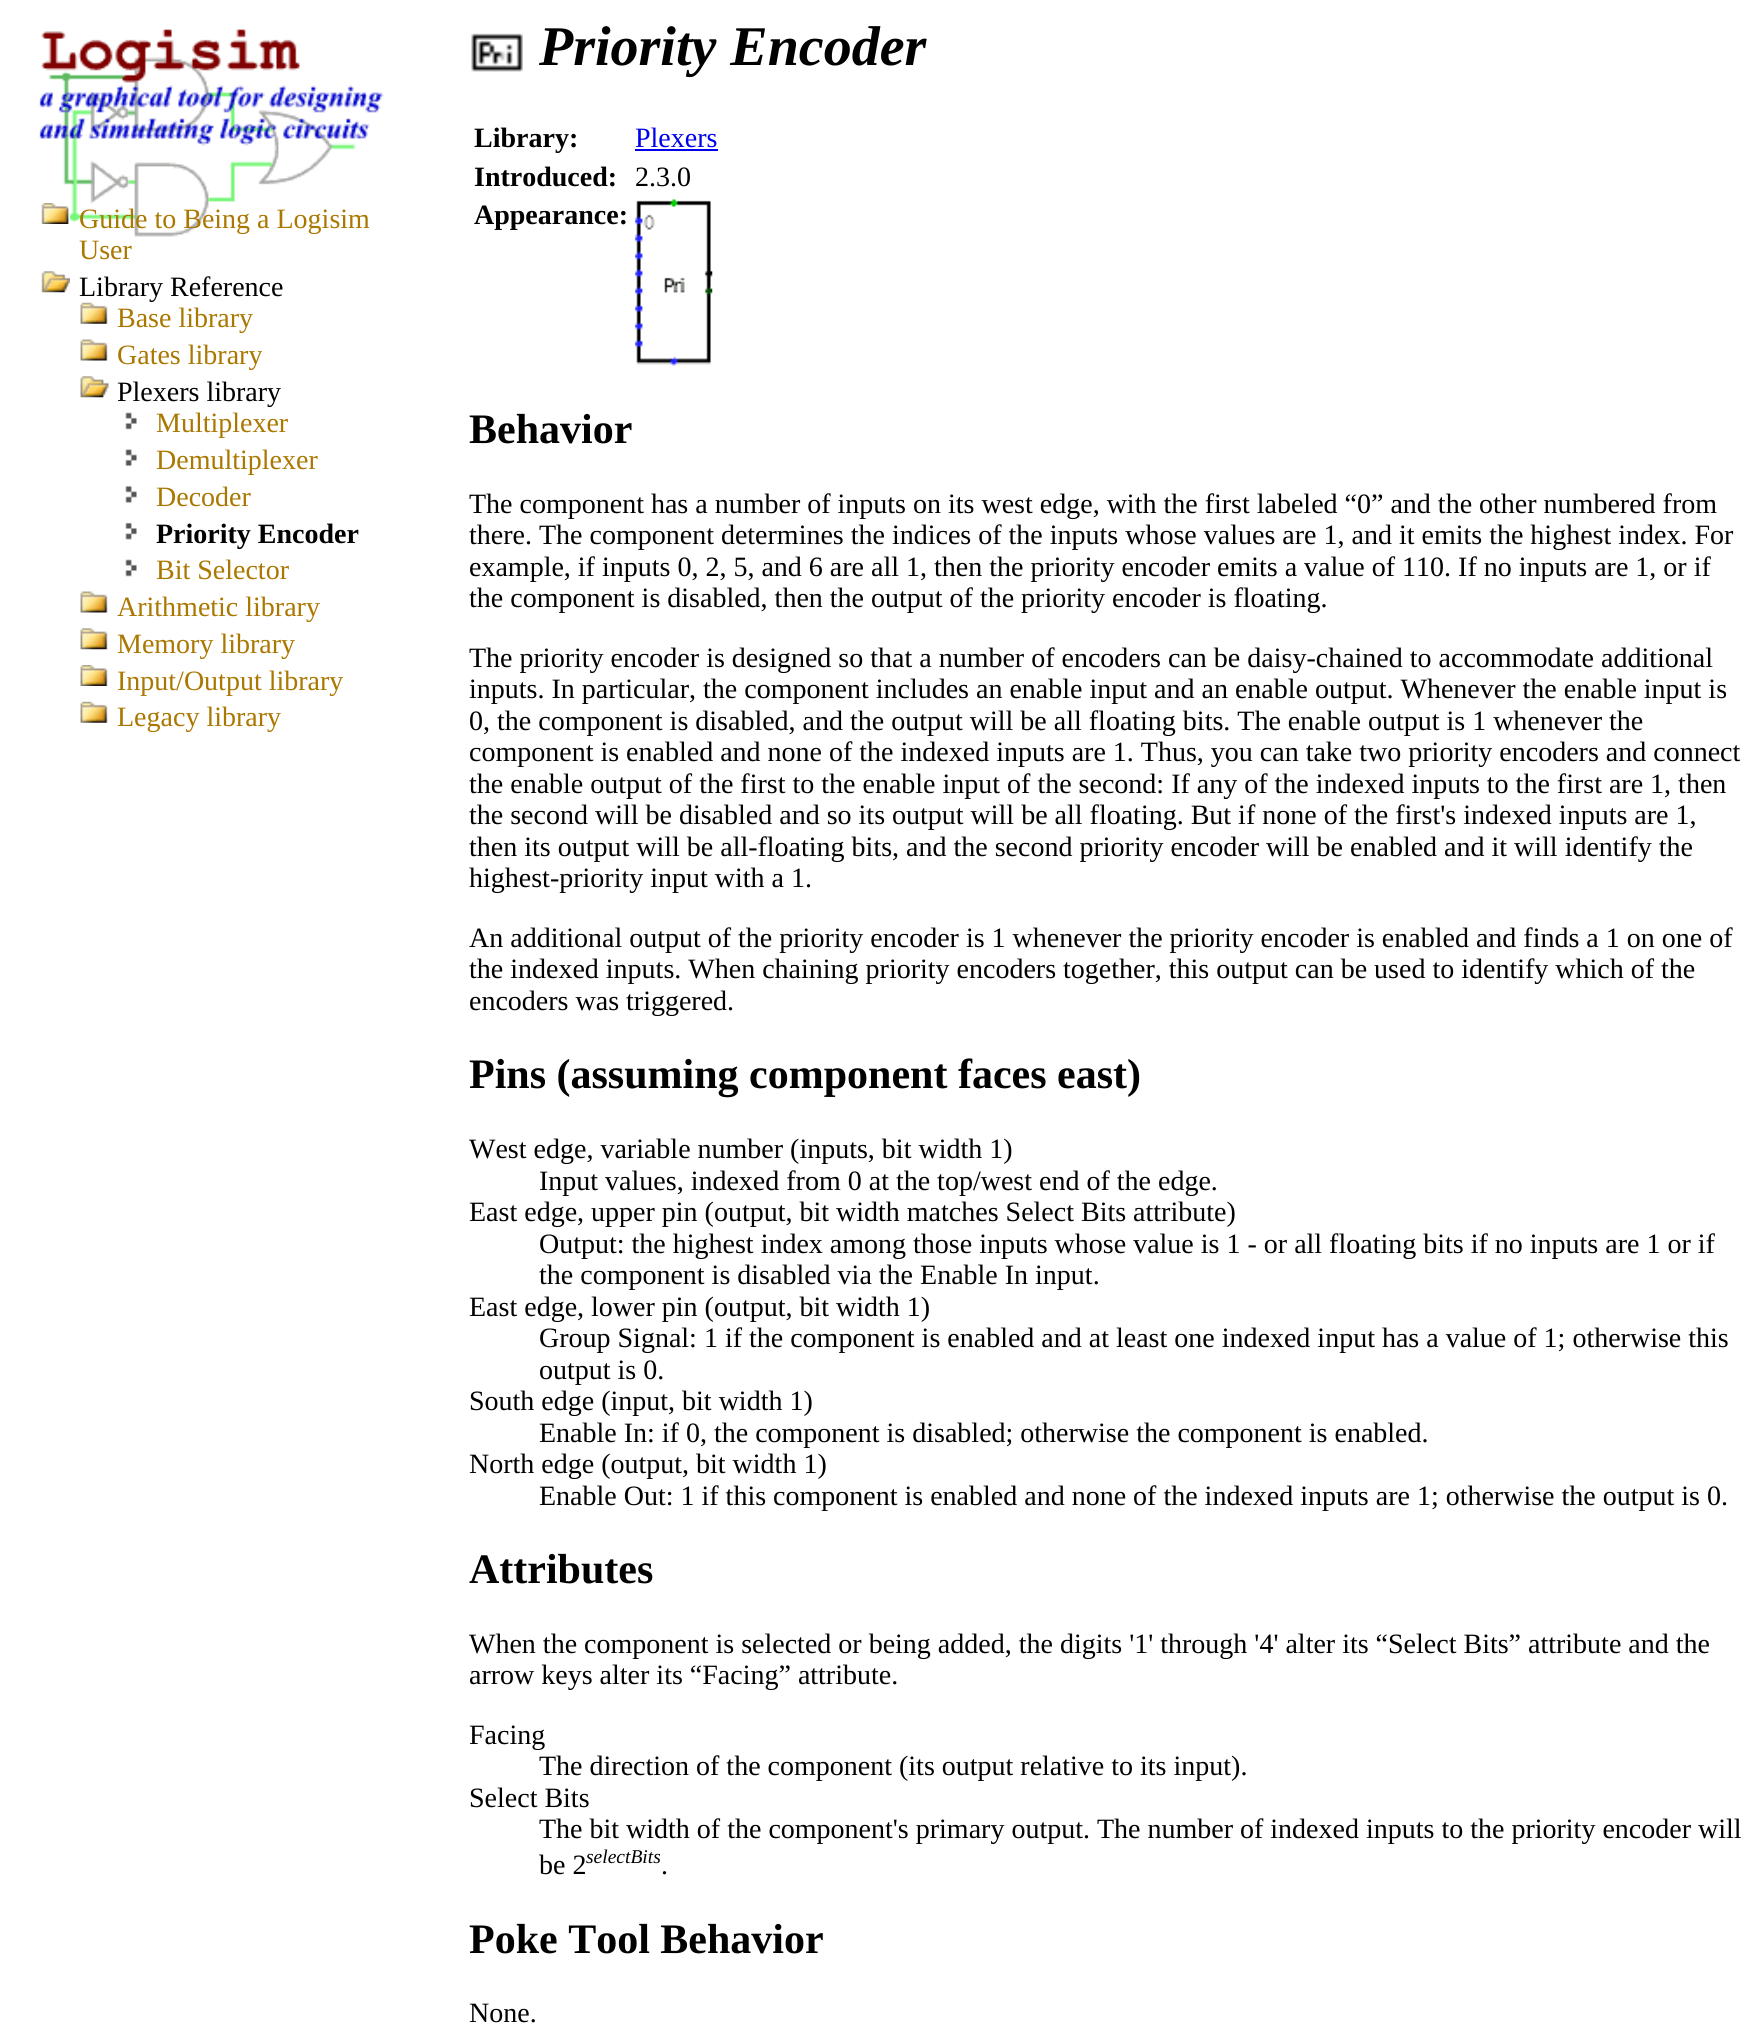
import math
import cairo

surface = cairo.ImageSurface(cairo.FORMAT_RGB24, 1762, 2042)
cr = cairo.Context(surface)
options = cairo.FontOptions()
options.set_hint_metrics(cairo.HINT_METRICS_OFF)
options.set_hint_style(cairo.HINT_STYLE_NONE)
cr.set_font_options(options)
cr.set_miter_limit(4)


def rgb(code):
    cr.set_source_rgb(*(v / 255 for v in bytes.fromhex(code[-6:])))


def image(path, x, y, w, h):
    cr.save()
    cr.set_source_surface(cairo.ImageSurface.create_from_png(path), x, y)
    cr.rectangle(x, y, w, h)
    cr.fill()
    cr.restore()


rgb("#ffffff")
cr.paint()
image("img/1.png", 39, 29, 345, 208)
image("img/2.png", 41, 203, 29, 21)
image("img/3.png", 41, 271, 29, 22)
image("img/4.png", 80, 302, 28, 22)
image("img/5.png", 80, 339, 28, 22)
image("img/6.png", 80, 376, 29, 22)
image("img/7.png", 125, 412, 12, 18)
image("img/8.png", 125, 449, 12, 17)
image("img/9.png", 125, 486, 12, 17)
image("img/10.png", 125, 522, 12, 18)
image("img/7.png", 125, 559, 12, 18)
image("img/5.png", 80, 591, 28, 22)
image("img/11.png", 80, 628, 28, 22)
image("img/12.png", 80, 665, 28, 21)
image("img/4.png", 80, 701, 28, 22)
image("img/13.png", 471, 33, 52, 39)
rgb("#0000ee")
cr.rectangle(635, 149, 83, 2)
cr.fill()
image("img/14.png", 635, 199, 78, 167)
cr.select_font_face("Liberation Serif")
cr.set_font_size(28)
rgb("#aa7700")
cr.move_to(79, 228)
cr.show_text("Guide to Being a Logisim")
cr.move_to(79, 259)
cr.show_text("User")
rgb("#000000")
cr.move_to(79, 296)
cr.show_text("Library Reference")
rgb("#aa7700")
cr.move_to(117, 327)
cr.show_text("Base library")
cr.move_to(117, 364)
cr.show_text("Gates library")
rgb("#000000")
cr.move_to(117, 401)
cr.show_text("Plexers library")
rgb("#aa7700")
for x, y, s in [
    (156, 432, "Multiplexer"),
    (156, 469, "Demultiplexer"),
    (156, 506, "Decoder"),
]:
    cr.move_to(x, y)
    cr.show_text(s)
cr.select_font_face("Liberation Serif", cairo.FONT_SLANT_NORMAL, cairo.FONT_WEIGHT_BOLD)
rgb("#000000")
cr.move_to(156, 543)
cr.show_text("Priority Encoder")
cr.select_font_face("Liberation Serif")
rgb("#aa7700")
for x, y, s in [
    (156, 579, "Bit Selector"),
    (117, 616, "Arithmetic library"),
    (117, 653, "Memory library"),
    (117, 690, "Input/Output library"),
    (117, 726, "Legacy library"),
]:
    cr.move_to(x, y)
    cr.show_text(s)
cr.select_font_face("Liberation Serif", cairo.FONT_SLANT_ITALIC, cairo.FONT_WEIGHT_BOLD)
cr.set_font_size(56)
rgb("#000000")
cr.move_to(539, 65)
cr.show_text("Priority Encoder")
cr.select_font_face("Liberation Serif", cairo.FONT_SLANT_NORMAL, cairo.FONT_WEIGHT_BOLD)
cr.set_font_size(28)
cr.move_to(474, 147)
cr.show_text("Library:")
cr.select_font_face("Liberation Serif")
rgb("#0000ee")
cr.move_to(635, 147)
cr.show_text("Plexers")
cr.select_font_face("Liberation Serif", cairo.FONT_SLANT_NORMAL, cairo.FONT_WEIGHT_BOLD)
rgb("#000000")
cr.move_to(474, 186)
cr.show_text("Introduced:")
cr.select_font_face("Liberation Serif")
cr.move_to(635, 186)
cr.show_text("2.3.0")
cr.select_font_face("Liberation Serif", cairo.FONT_SLANT_NORMAL, cairo.FONT_WEIGHT_BOLD)
cr.move_to(474, 224)
cr.show_text("Appearance:")
cr.set_font_size(42)
cr.move_to(469, 443)
cr.show_text("Behavior")
cr.select_font_face("Liberation Serif")
cr.set_font_size(28)
for x, y, s in [
    (469, 513, "The component has a number of inputs on its west edge, with the first labeled “0” and the other numbered from"),
    (469, 544, "there. The component determines the indices of the inputs whose values are 1, and it emits the highest index. For"),
    (469, 576, "example, if inputs 0, 2, 5, and 6 are all 1, then the priority encoder emits a value of 110. If no inputs are 1, or if"),
    (469, 607, "the component is disabled, then the output of the priority encoder is floating."),
    (469, 667, "The priority encoder is designed so that a number of encoders can be daisy-chained to accommodate additional"),
    (469, 698, "inputs. In particular, the component includes an enable input and an enable output. Whenever the enable input is"),
    (469, 730, "0, the component is disabled, and the output will be all floating bits. The enable output is 1 whenever the"),
    (469, 761, "component is enabled and none of the indexed inputs are 1. Thus, you can take two priority encoders and connect"),
    (469, 793, "the enable output of the first to the enable input of the second: If any of the indexed inputs to the first are 1, then"),
    (469, 824, "the second will be disabled and so its output will be all floating. But if none of the first's indexed inputs are 1,"),
    (469, 856, "then its output will be all-floating bits, and the second priority encoder will be enabled and it will identify the"),
    (469, 887, "highest-priority input with a 1."),
    (469, 947, "An additional output of the priority encoder is 1 whenever the priority encoder is enabled and finds a 1 on one of"),
    (469, 978, "the indexed inputs. When chaining priority encoders together, this output can be used to identify which of the"),
    (469, 1010, "encoders was triggered."),
]:
    cr.move_to(x, y)
    cr.show_text(s)
cr.select_font_face("Liberation Serif", cairo.FONT_SLANT_NORMAL, cairo.FONT_WEIGHT_BOLD)
cr.set_font_size(42)
cr.move_to(469, 1088)
cr.show_text("Pins (assuming component faces east)")
cr.select_font_face("Liberation Serif")
cr.set_font_size(28)
for x, y, s in [
    (469, 1158, "West edge, variable number (inputs, bit width 1)"),
    (539, 1190, "Input values, indexed from 0 at the top/west end of the edge."),
    (469, 1221, "East edge, upper pin (output, bit width matches Select Bits attribute)"),
    (539, 1253, "Output: the highest index among those inputs whose value is 1 - or all floating bits if no inputs are 1 or if"),
    (539, 1284, "the component is disabled via the Enable In input."),
    (469, 1316, "East edge, lower pin (output, bit width 1)"),
    (539, 1347, "Group Signal: 1 if the component is enabled and at least one indexed input has a value of 1; otherwise this"),
    (539, 1379, "output is 0."),
    (469, 1410, "South edge (input, bit width 1)"),
    (539, 1442, "Enable In: if 0, the component is disabled; otherwise the component is enabled."),
    (469, 1473, "North edge (output, bit width 1)"),
    (539, 1505, "Enable Out: 1 if this component is enabled and none of the indexed inputs are 1; otherwise the output is 0."),
]:
    cr.move_to(x, y)
    cr.show_text(s)
cr.select_font_face("Liberation Serif", cairo.FONT_SLANT_NORMAL, cairo.FONT_WEIGHT_BOLD)
cr.set_font_size(42)
cr.move_to(469, 1583)
cr.show_text("Attributes")
cr.select_font_face("Liberation Serif")
cr.set_font_size(28)
for x, y, s in [
    (469, 1653, "When the component is selected or being added, the digits '1' through '4' alter its “Select Bits” attribute and the"),
    (469, 1684, "arrow keys alter its “Facing” attribute."),
    (469, 1744, "Facing"),
    (539, 1775, "The direction of the component (its output relative to its input)."),
    (469, 1807, "Select Bits"),
    (539, 1838, "The bit width of the component's primary output. The number of indexed inputs to the priority encoder will"),
    (539, 1874, "be 2"),
]:
    cr.move_to(x, y)
    cr.show_text(s)
cr.select_font_face("Liberation Serif", cairo.FONT_SLANT_ITALIC)
cr.set_font_size(19.5)
cr.move_to(586, 1863)
cr.show_text("selectBits")
cr.select_font_face("Liberation Serif")
cr.set_font_size(28)
cr.move_to(661, 1874)
cr.show_text(".")
cr.select_font_face("Liberation Serif", cairo.FONT_SLANT_NORMAL, cairo.FONT_WEIGHT_BOLD)
cr.set_font_size(42)
cr.move_to(469, 1953)
cr.show_text("Poke Tool Behavior")
cr.select_font_face("Liberation Serif")
cr.set_font_size(28)
cr.move_to(469, 2022)
cr.show_text("None.")
surface.write_to_png("page.png")
